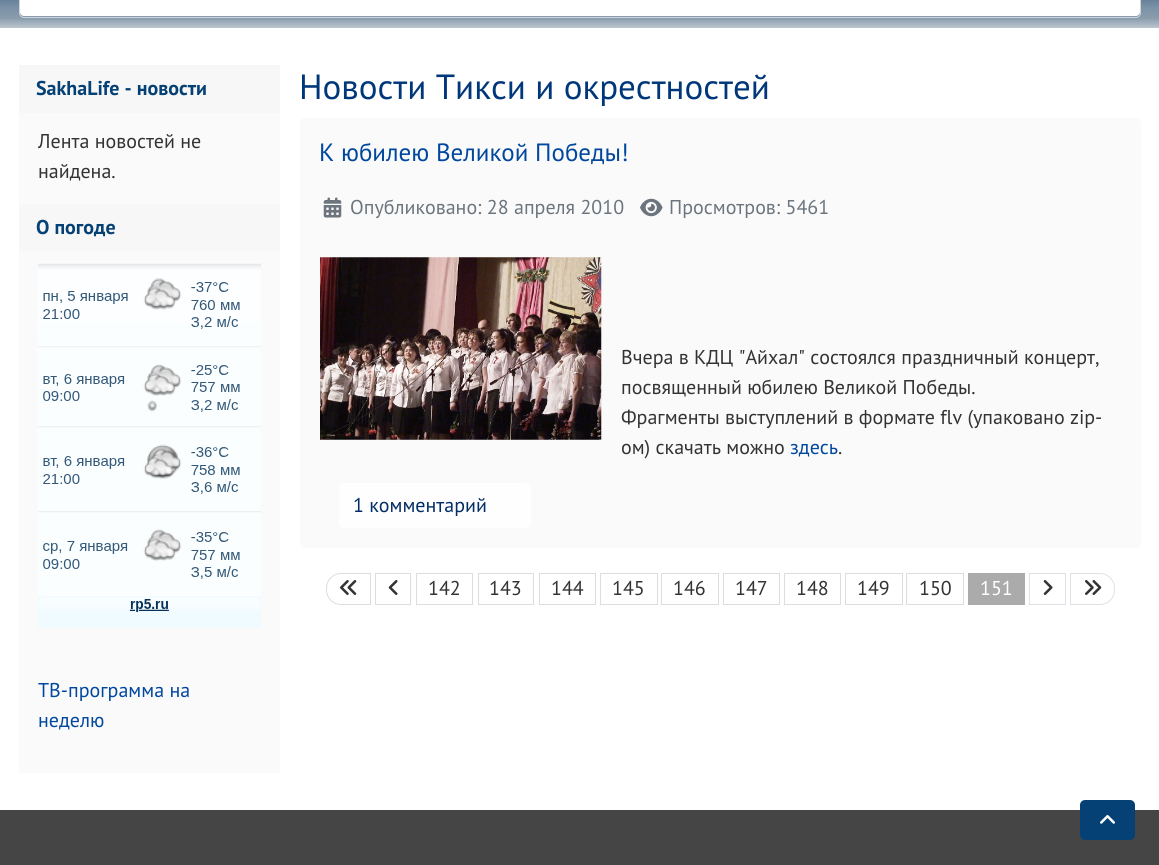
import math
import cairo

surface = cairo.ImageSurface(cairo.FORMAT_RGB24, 1159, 865)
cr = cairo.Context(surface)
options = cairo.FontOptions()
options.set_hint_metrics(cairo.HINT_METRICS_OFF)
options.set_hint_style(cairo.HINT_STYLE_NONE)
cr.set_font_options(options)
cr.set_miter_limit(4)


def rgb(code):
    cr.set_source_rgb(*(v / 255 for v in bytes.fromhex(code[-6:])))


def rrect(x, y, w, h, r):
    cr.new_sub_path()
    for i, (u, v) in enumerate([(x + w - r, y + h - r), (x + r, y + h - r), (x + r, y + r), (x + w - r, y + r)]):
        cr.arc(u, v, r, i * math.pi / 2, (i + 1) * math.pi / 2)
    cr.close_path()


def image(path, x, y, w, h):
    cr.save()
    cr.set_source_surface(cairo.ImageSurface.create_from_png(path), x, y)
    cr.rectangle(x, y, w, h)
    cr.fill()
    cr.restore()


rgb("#ffffff")
cr.paint()
image("img/1.png", 0, 0, 1159, 28)
rgb("#ffffff")
rrect(20, -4, 1120, 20, 4)
cr.fill()
rrect(19.5, -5.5, 1121, 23, 4.5)
rgb("#ced4da")
cr.set_line_width(1)
cr.stroke()
rgb("#fafafa")
rrect(19, 65, 261, 139, 1)
cr.fill()
rgb("#f7f7f7")
cr.new_path()
cr.move_to(20, 65)
cr.line_to(279, 65)
cr.curve_to(279.5, 65, 280, 65.5, 280, 66)
cr.line_to(280, 113)
cr.line_to(19, 113)
cr.line_to(19, 66)
cr.curve_to(19, 65.5, 19.5, 65, 20, 65)
cr.close_path()
cr.fill()
rgb("#fafafa")
rrect(19, 204, 261, 451, 1)
cr.fill()
rgb("#f7f7f7")
cr.new_path()
cr.move_to(20, 204)
cr.line_to(279, 204)
cr.curve_to(279.5, 204, 280, 204.5, 280, 205)
cr.line_to(280, 251)
cr.line_to(19, 251)
cr.line_to(19, 205)
cr.curve_to(19, 204.5, 19.5, 204, 20, 204)
cr.close_path()
cr.fill()
image("img/2.png", 37, 263, 224, 365)
rgb("#fafafa")
rrect(19, 655, 261, 118, 1)
cr.fill()
rrect(300, 118, 841, 430, 5)
cr.fill()
image("img/3.png", 323, 197, 19, 21)
image("img/4.png", 640, 198, 23, 19)
image("img/5.png", 320, 257, 282, 183)
rgb("#fefefe")
cr.new_path()
cr.move_to(344, 483)
cr.line_to(503, 483)
cr.line_to(503, 528)
cr.line_to(344, 528)
cr.curve_to(341, 528, 339, 526, 339, 523)
cr.line_to(339, 488)
cr.curve_to(339, 485, 341, 483, 344, 483)
cr.close_path()
cr.fill()
cr.new_path()
cr.move_to(501, 483)
cr.line_to(526, 483)
cr.curve_to(529, 483, 531, 485, 531, 488)
cr.line_to(531, 523)
cr.curve_to(531, 526, 529, 528, 526, 528)
cr.line_to(501, 528)
cr.close_path()
cr.fill()
cr.new_path()
cr.move_to(341, 573.5)
cr.line_to(370.5, 573.5)
cr.line_to(370.5, 604.5)
cr.line_to(341, 604.5)
cr.curve_to(333, 604.5, 326.5, 598, 326.5, 590)
cr.line_to(326.5, 588)
cr.curve_to(326.5, 580, 333, 573.5, 341, 573.5)
cr.close_path()
rgb("#dddddd")
cr.stroke()
image("img/6.png", 340, 580, 17, 15)
cr.rectangle(375.5, 573.5, 35, 31)
cr.stroke()
image("img/7.png", 388, 580, 10, 15)
cr.rectangle(416.5, 573.5, 56, 31)
cr.stroke()
cr.rectangle(478.5, 573.5, 55, 31)
cr.stroke()
cr.rectangle(539.5, 573.5, 56, 31)
cr.stroke()
cr.rectangle(600.5, 573.5, 57, 31)
cr.stroke()
cr.rectangle(661.5, 573.5, 57, 31)
cr.stroke()
cr.rectangle(723.5, 573.5, 56, 31)
cr.stroke()
cr.rectangle(784.5, 573.5, 56, 31)
cr.stroke()
cr.rectangle(845.5, 573.5, 57, 31)
cr.stroke()
cr.rectangle(906.5, 573.5, 57, 31)
cr.stroke()
rgb("#ababab")
cr.rectangle(968, 573, 57, 32)
cr.fill()
cr.rectangle(1029.5, 573.5, 36, 31)
rgb("#dee2e6")
cr.stroke()
image("img/8.png", 1043, 580, 10, 15)
cr.new_path()
cr.move_to(1070.5, 573.5)
cr.line_to(1100, 573.5)
cr.curve_to(1108, 573.5, 1114.5, 580, 1114.5, 588)
cr.line_to(1114.5, 590)
cr.curve_to(1114.5, 598, 1108, 604.5, 1100, 604.5)
cr.line_to(1070.5, 604.5)
cr.close_path()
cr.stroke()
image("img/9.png", 1085, 580, 17, 15)
rgb("#454545")
cr.rectangle(0, 810, 1159, 55)
cr.fill()
rgb("#054175")
rrect(1080, 800, 55, 40, 5)
cr.fill()
image("img/10.png", 1100, 815, 15, 9)
cr.select_font_face("PT Sans", cairo.FONT_SLANT_NORMAL, cairo.FONT_WEIGHT_BOLD)
cr.set_font_size(20)
cr.move_to(36, 95)
cr.show_text("SakhaLife - новости")
cr.select_font_face("PT Sans")
rgb("#333333")
cr.move_to(38, 148)
cr.show_text("Лента новостей не")
cr.move_to(38, 178)
cr.show_text("найдена.")
cr.select_font_face("PT Sans", cairo.FONT_SLANT_NORMAL, cairo.FONT_WEIGHT_BOLD)
rgb("#054175")
cr.move_to(36, 234)
cr.show_text("О погоде")
cr.select_font_face("PT Sans")
rgb("#00479e")
cr.move_to(38, 697)
cr.show_text("ТВ-программа на")
cr.move_to(38, 727)
cr.show_text("неделю")
cr.set_font_size(35)
rgb("#00377a")
cr.move_to(299, 99)
cr.show_text("Новости Тикси и окрестностей")
cr.set_font_size(25)
rgb("#00479e")
cr.move_to(319, 161)
cr.show_text("К юбилею Великой Победы!")
cr.set_font_size(20)
rgb("#6c757d")
cr.move_to(350, 214)
cr.show_text("Опубликовано: 28 апреля 2010")
cr.move_to(669, 214)
cr.show_text("Просмотров: 5461")
rgb("#333333")
for x, y, s in [
    (621, 364, "Вчера в КДЦ \"Айхал\" состоялся праздничный концерт,"),
    (621, 394, "посвященный юбилею Великой Победы."),
    (621, 424, "Фрагменты выступлений в формате flv (упаковано zip-"),
    (621, 454, "ом) скачать можно"),
]:
    cr.move_to(x, y)
    cr.show_text(s)
rgb("#00479e")
cr.move_to(790, 454)
cr.show_text("здесь")
rgb("#333333")
cr.move_to(838, 454)
cr.show_text(".")
rgb("#012e65")
cr.move_to(353, 512)
cr.show_text("1 комментарий")
rgb("#333333")
for x, y, s in [
    (428, 595, "142"),
    (489, 595, "143"),
    (551, 595, "144"),
    (612, 595, "145"),
    (673, 595, "146"),
    (735, 595, "147"),
    (796, 595, "148"),
    (857, 595, "149"),
    (919, 595, "150"),
]:
    cr.move_to(x, y)
    cr.show_text(s)
rgb("#ffffff")
cr.move_to(980, 595)
cr.show_text("151")
surface.write_to_png("page.png")
